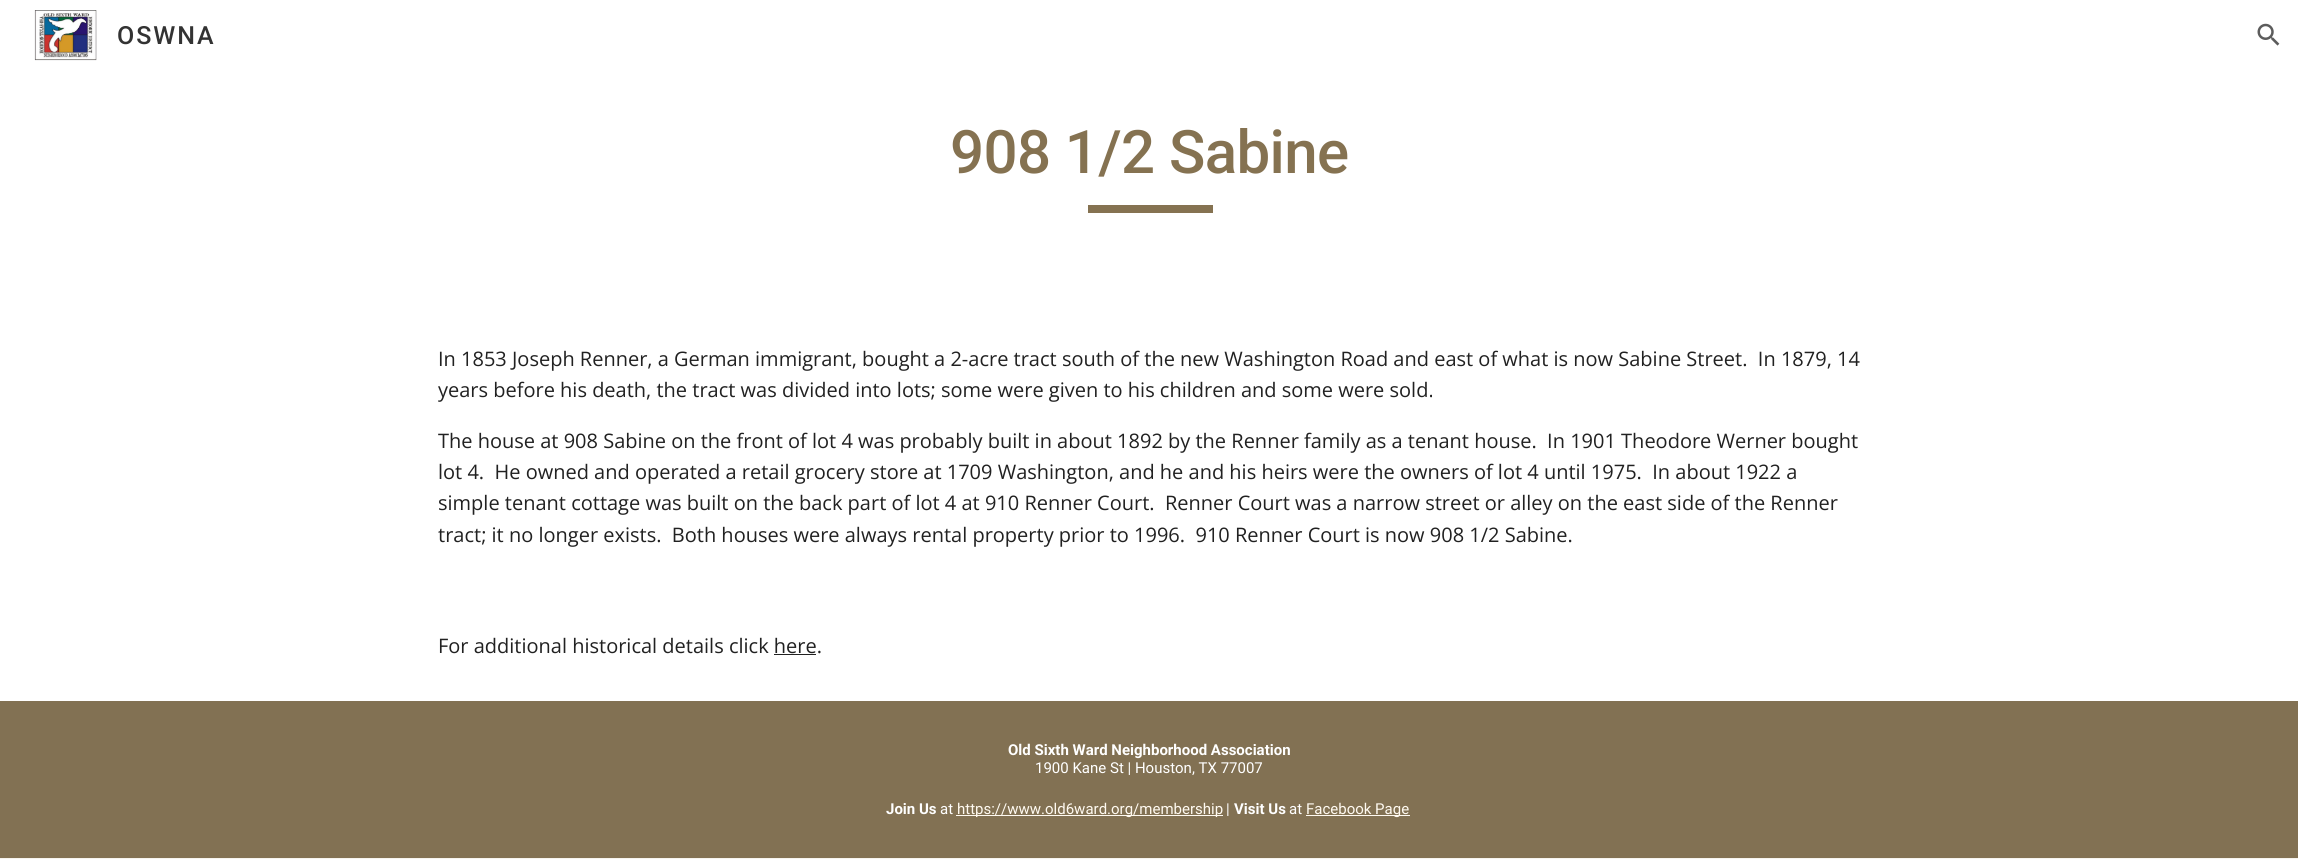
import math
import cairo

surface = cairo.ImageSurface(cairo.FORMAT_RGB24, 2298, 859)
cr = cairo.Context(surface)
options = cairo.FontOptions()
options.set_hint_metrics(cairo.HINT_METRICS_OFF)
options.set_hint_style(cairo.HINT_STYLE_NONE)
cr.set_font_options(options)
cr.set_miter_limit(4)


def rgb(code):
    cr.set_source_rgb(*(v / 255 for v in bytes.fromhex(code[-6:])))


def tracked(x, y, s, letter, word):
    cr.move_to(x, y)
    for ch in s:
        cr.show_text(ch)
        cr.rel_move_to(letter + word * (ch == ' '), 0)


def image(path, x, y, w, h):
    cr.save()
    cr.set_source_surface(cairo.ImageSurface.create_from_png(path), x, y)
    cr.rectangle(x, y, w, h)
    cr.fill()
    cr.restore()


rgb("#ffffff")
cr.paint()
image("img/1.png", 34, 10, 63, 51)
image("img/2.png", 2257, 23, 23, 23)
for x, y, w, h, color in [
    (1088, 205, 125, 8, "#857251"),
    (774, 654, 42, 1, "#212121"),
    (0, 701, 2298, 157, "#827153"),
    (956, 815, 267, 1, "#fffaf1"),
    (1306, 815, 104, 1, "#fffaf1"),
    (0, 858, 2298, 1, "#f7f4ee"),
]:
    rgb(color)
    cr.rectangle(x, y, w, h)
    cr.fill()
cr.select_font_face("Roboto Medium")
cr.set_font_size(25)
rgb("#333333")
tracked(117, 44, "OSWNA", 2, 0)
cr.set_font_size(60)
rgb("#857251")
tracked(950, 173, "908 1/2 Sabine", -0.6, 0)
cr.select_font_face("Open Sans")
cr.set_font_size(20)
rgb("#212121")
for x, y, s in [
    (438, 366, "In 1853 Joseph Renner, a German immigrant, bought a 2-acre tract south of the new Washington Road and east of what is now Sabine Street.  In 1879, 14"),
    (438, 397, "years before his death, the tract was divided into lots; some were given to his children and some were sold."),
    (438, 448, "The house at 908 Sabine on the front of lot 4 was probably built in about 1892 by the Renner family as a tenant house.  In 1901 Theodore Werner bought"),
    (438, 479, "lot 4.  He owned and operated a retail grocery store at 1709 Washington, and he and his heirs were the owners of lot 4 until 1975.  In about 1922 a"),
    (438, 510, "simple tenant cottage was built on the back part of lot 4 at 910 Renner Court.  Renner Court was a narrow street or alley on the east side of the Renner"),
    (438, 542, "tract; it no longer exists.  Both houses were always rental property prior to 1996.  910 Renner Court is now 908 1/2 Sabine."),
    (438, 653, "For additional historical details click here."),
]:
    cr.move_to(x, y)
    cr.show_text(s)
cr.select_font_face("Roboto", cairo.FONT_SLANT_NORMAL, cairo.FONT_WEIGHT_BOLD)
cr.set_font_size(15)
rgb("#ffffff")
cr.move_to(1008, 755)
cr.show_text("Old Sixth Ward Neighborhood Association")
cr.select_font_face("Roboto")
cr.move_to(1035, 773)
cr.show_text("1900 Kane St | Houston, TX 77007")
cr.select_font_face("Roboto", cairo.FONT_SLANT_NORMAL, cairo.FONT_WEIGHT_BOLD)
cr.move_to(886, 814)
cr.show_text("Join Us")
cr.select_font_face("Roboto")
cr.move_to(940, 814)
cr.show_text("at")
rgb("#fffaf1")
cr.move_to(957, 814)
cr.show_text("https://www.old6ward.org/membership")
rgb("#ffffff")
cr.move_to(1226, 814)
cr.show_text("|")
cr.select_font_face("Roboto", cairo.FONT_SLANT_NORMAL, cairo.FONT_WEIGHT_BOLD)
cr.move_to(1234, 814)
cr.show_text("Visit Us")
cr.select_font_face("Roboto")
cr.move_to(1289, 814)
cr.show_text("at")
rgb("#fffaf1")
cr.move_to(1306, 814)
cr.show_text("Facebook Page")
surface.write_to_png("page.png")
